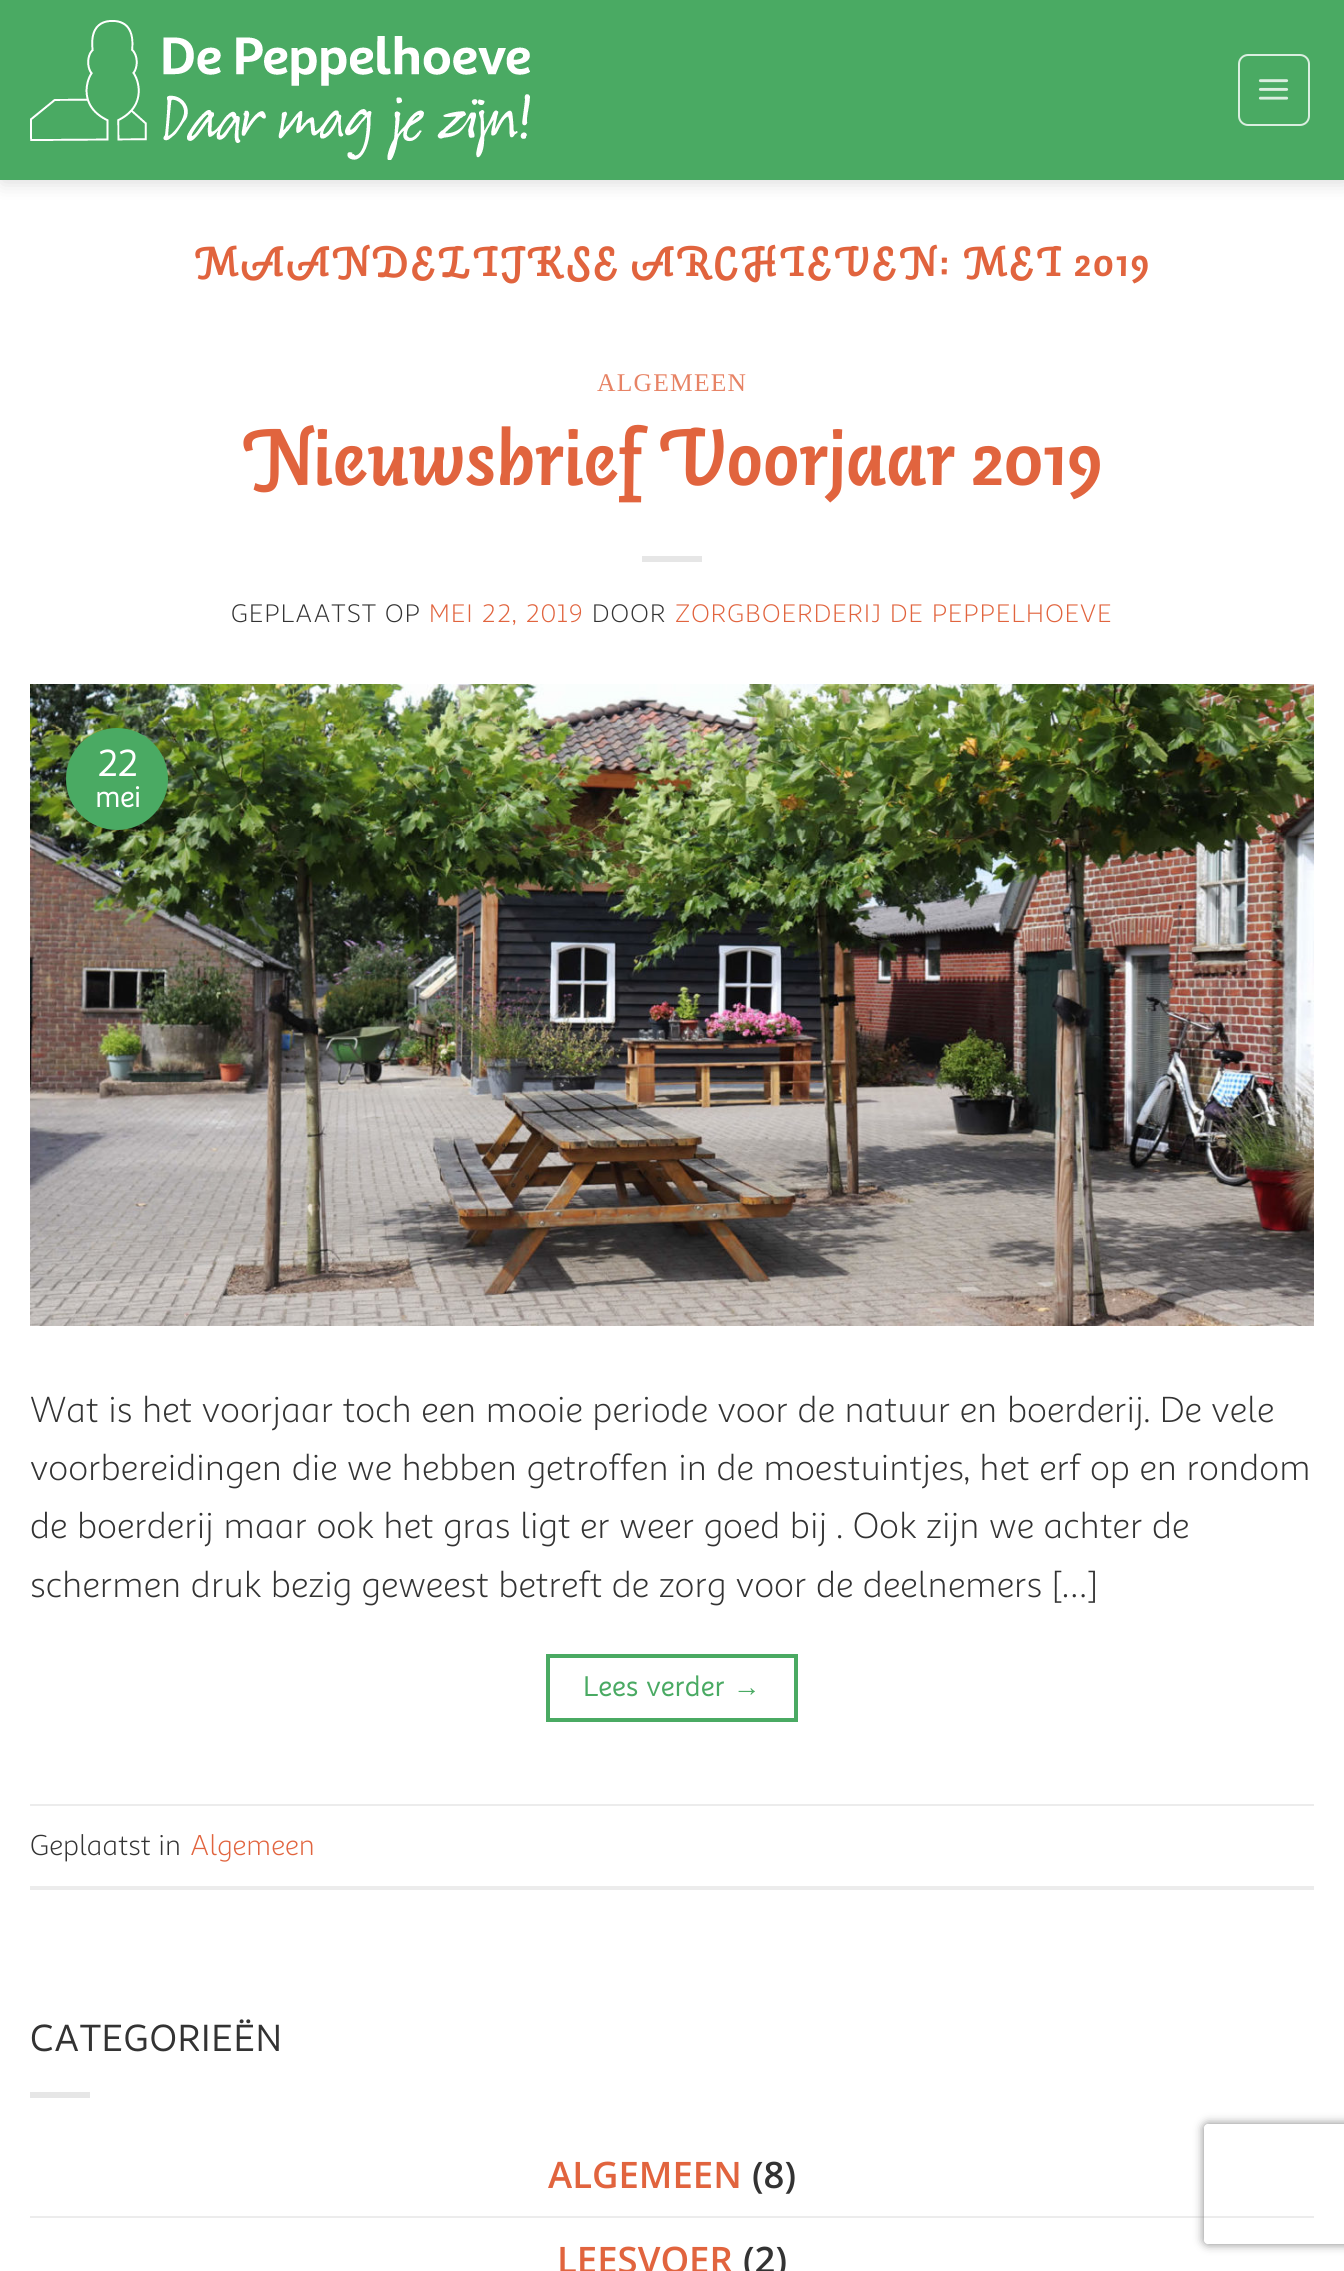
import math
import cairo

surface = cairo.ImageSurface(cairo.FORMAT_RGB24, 1344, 2271)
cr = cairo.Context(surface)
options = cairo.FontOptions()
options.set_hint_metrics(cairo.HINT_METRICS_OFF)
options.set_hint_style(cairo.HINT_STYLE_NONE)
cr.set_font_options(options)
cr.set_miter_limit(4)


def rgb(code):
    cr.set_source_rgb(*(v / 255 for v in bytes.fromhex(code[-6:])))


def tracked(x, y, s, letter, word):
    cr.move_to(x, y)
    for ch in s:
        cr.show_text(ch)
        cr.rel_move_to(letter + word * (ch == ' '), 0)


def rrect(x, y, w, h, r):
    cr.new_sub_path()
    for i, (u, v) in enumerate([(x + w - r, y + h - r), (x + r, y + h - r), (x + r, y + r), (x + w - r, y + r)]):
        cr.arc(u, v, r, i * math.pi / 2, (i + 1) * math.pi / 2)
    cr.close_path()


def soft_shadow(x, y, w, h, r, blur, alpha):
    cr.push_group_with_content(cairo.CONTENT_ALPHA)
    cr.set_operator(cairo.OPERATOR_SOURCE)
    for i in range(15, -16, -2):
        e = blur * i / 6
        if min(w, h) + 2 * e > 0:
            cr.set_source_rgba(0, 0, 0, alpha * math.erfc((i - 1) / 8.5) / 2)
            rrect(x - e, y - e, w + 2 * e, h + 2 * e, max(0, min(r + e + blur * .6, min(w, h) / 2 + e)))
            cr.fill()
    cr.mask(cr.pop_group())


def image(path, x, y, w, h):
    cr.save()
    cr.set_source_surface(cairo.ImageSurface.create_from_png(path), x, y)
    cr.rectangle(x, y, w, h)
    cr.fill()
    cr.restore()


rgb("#ffffff")
cr.paint()
rgb("#000000")
soft_shadow(2, 2, 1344, 180, 0, 10, 0.15)
rgb("#4aaa63")
cr.rectangle(0, 0, 1344, 180)
cr.fill()
image("img/1.png", 30, 20, 500, 140)
rrect(1239, 55, 70, 70, 9)
rgb("#dbeee0")
cr.stroke()
image("img/2.png", 1258, 79, 31, 21)
rgb("#e6e6e6")
cr.rectangle(642, 556, 60, 6)
cr.fill()
image("img/3.png", 30, 684, 1284, 642)
rgb("#4aaa63")
cr.arc(117, 779, 51, 0, 2 * math.pi)
cr.fill()
cr.rectangle(548, 1656, 248, 64)
cr.set_line_width(4)
cr.stroke()
for x, y, w, h, color in [
    (30, 1804, 1284, 2, "#ececec"),
    (30, 1886, 1284, 4, "#ececec"),
    (30, 2092, 60, 6, "#e6e6e6"),
    (30, 2216, 1284, 2, "#ececec"),
]:
    rgb(color)
    cr.rectangle(x, y, w, h)
    cr.fill()
cr.save()
cr.set_fill_rule(cairo.FILL_RULE_EVEN_ODD)
cr.new_path()
cr.move_to(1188, 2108)
cr.line_to(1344, 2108)
cr.line_to(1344, 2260)
cr.line_to(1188, 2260)
cr.close_path()
cr.move_to(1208, 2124)
cr.line_to(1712, 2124)
cr.curve_to(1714, 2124, 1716, 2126, 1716, 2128)
cr.line_to(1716, 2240)
cr.curve_to(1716, 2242, 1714, 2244, 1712, 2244)
cr.line_to(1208, 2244)
cr.curve_to(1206, 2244, 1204, 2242, 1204, 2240)
cr.line_to(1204, 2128)
cr.curve_to(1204, 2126, 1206, 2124, 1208, 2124)
cr.close_path()
cr.clip()
rgb("#808080")
soft_shadow(1204, 2124, 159, 120, 4, 5, 1)
cr.restore()
cr.select_font_face("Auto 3", cairo.FONT_SLANT_ITALIC, cairo.FONT_WEIGHT_BOLD)
cr.set_font_size(41.95)
rgb("#e1643e")
tracked(194, 276, "MAANDELIJKSE ARCHIEVEN: MEI 2019", 2.1, 0)
cr.select_font_face("Liberation Serif")
cr.set_font_size(25.5)
rgb("#e78365")
tracked(597, 391, "ALGEMEEN", 1.25, 0)
cr.select_font_face("Auto 3", cairo.FONT_SLANT_ITALIC, cairo.FONT_WEIGHT_BOLD)
cr.set_font_size(80.25)
rgb("#e1643e")
cr.move_to(241, 485)
cr.show_text("Nieuwsbrief Voorjaar 2019")
cr.select_font_face("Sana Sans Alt")
cr.set_font_size(25.5)
rgb("#333333")
tracked(231, 622, "GEPLAATST OP", 1.25, 0)
rgb("#e1643e")
tracked(429, 622, "MEI 22, 2019", 1.25, 0)
rgb("#333333")
tracked(592, 622, "DOOR", 1.25, 0)
rgb("#e1643e")
tracked(675, 622, "ZORGBOERDERIJ DE PEPPELHOEVE", 1.25, 0)
cr.select_font_face("Sana Sans Alt", cairo.FONT_SLANT_NORMAL, cairo.FONT_WEIGHT_BOLD)
cr.set_font_size(36.5)
rgb("#ffffff")
cr.move_to(97, 776)
cr.show_text("22")
cr.set_font_size(29)
cr.move_to(95, 807)
cr.show_text("mei")
cr.select_font_face("Sana Sans Alt")
cr.set_font_size(36.5)
rgb("#333333")
for x, y, s in [
    (30, 1422, "Wat is het voorjaar toch een mooie periode voor de natuur en boerderij. De vele"),
    (30, 1480, "voorbereidingen die we hebben getroffen in de moestuintjes, het erf op en rondom"),
    (30, 1538, "de boerderij maar ook het gras ligt er weer goed bij . Ook zijn we achter de"),
    (30, 1597, "schermen druk bezig geweest betreft de zorg voor de deelnemers […]"),
]:
    cr.move_to(x, y)
    cr.show_text(s)
cr.select_font_face("Sana Sans Alt", cairo.FONT_SLANT_NORMAL, cairo.FONT_WEIGHT_BOLD)
cr.set_font_size(27.5)
rgb("#4aaa63")
tracked(583, 1696, "Lees verder", 0.75, 0)
cr.select_font_face("Liberation Sans", cairo.FONT_SLANT_NORMAL, cairo.FONT_WEIGHT_BOLD)
tracked(733, 1696, "→", 0.75, 0)
cr.select_font_face("Sana Sans Alt")
cr.set_font_size(29)
rgb("#333333")
cr.move_to(30, 1855)
cr.show_text("Geplaatst in")
rgb("#e1643e")
cr.move_to(190, 1855)
cr.show_text("Algemeen")
cr.select_font_face("Sana Sans Alt", cairo.FONT_SLANT_NORMAL, cairo.FONT_WEIGHT_BOLD)
cr.set_font_size(36.5)
rgb("#333333")
tracked(30, 2051, "CATEGORIEËN", 1.75, 0)
cr.select_font_face("Open Sans SemiBold")
rgb("#e1643e")
cr.move_to(548, 2188)
cr.show_text("ALGEMEEN")
rgb("#333333")
cr.move_to(752, 2188)
cr.show_text("(8)")
rgb("#e1643e")
cr.move_to(557, 2273)
cr.show_text("LEESVOER")
rgb("#333333")
cr.move_to(743, 2273)
cr.show_text("(2)")
surface.write_to_png("page.png")
